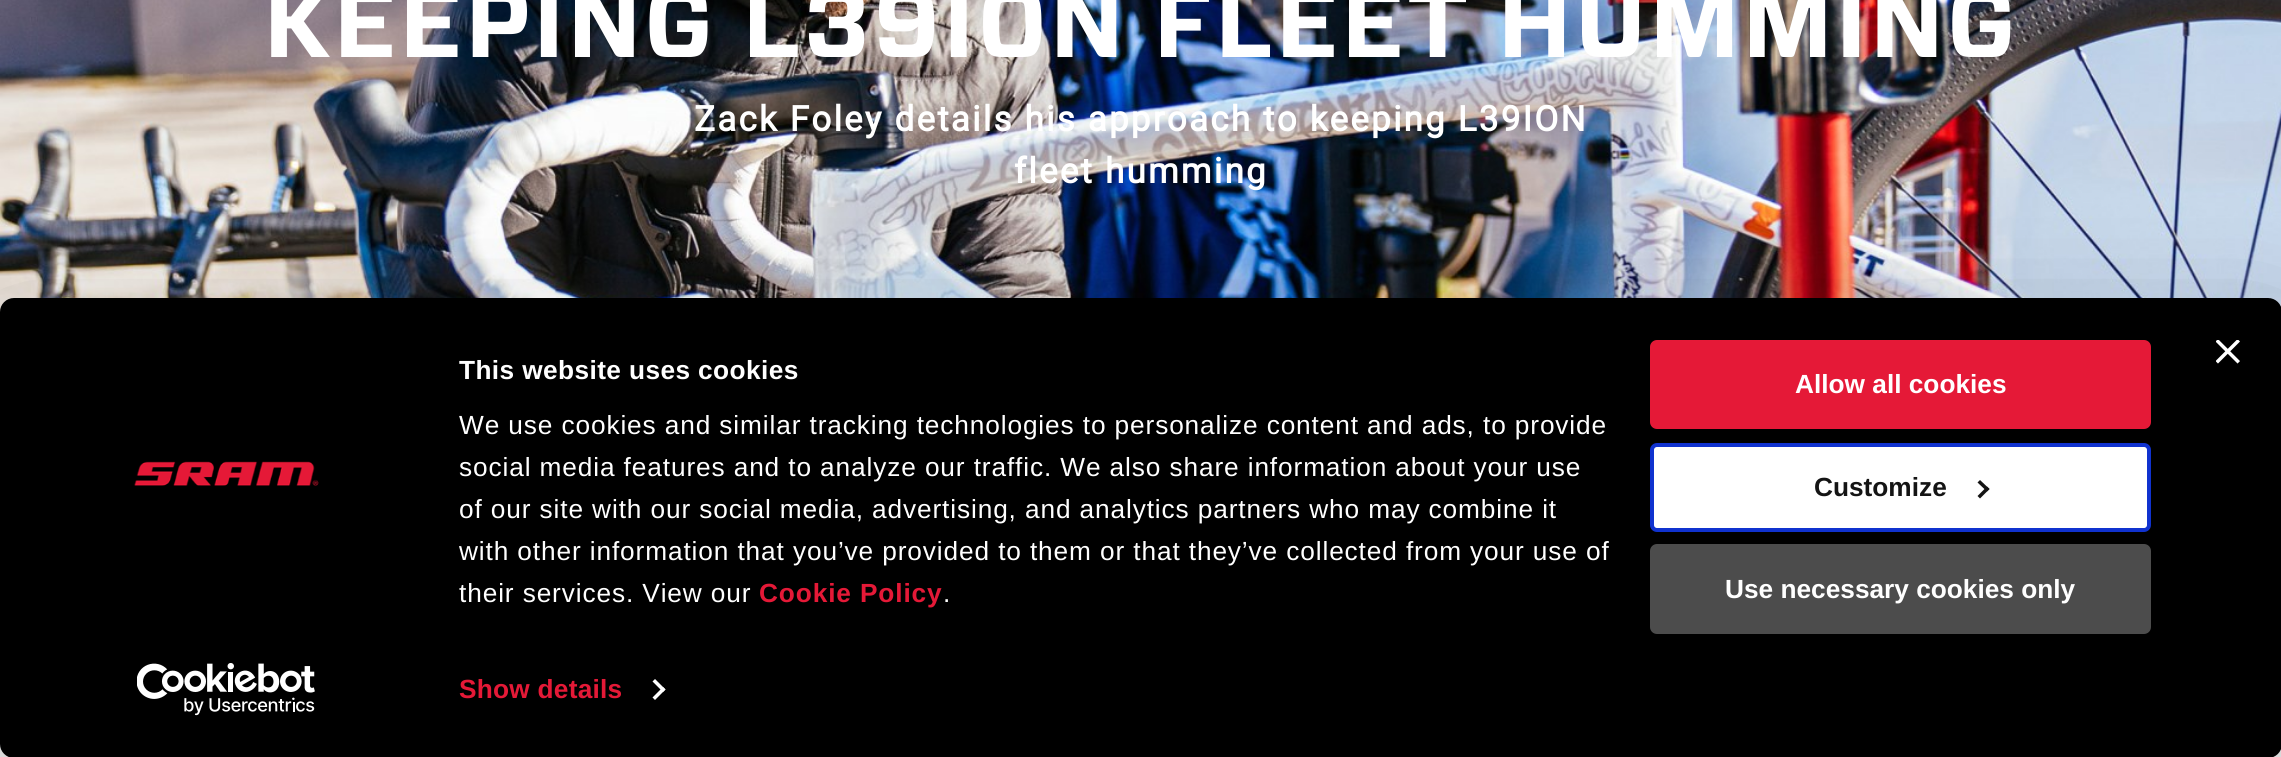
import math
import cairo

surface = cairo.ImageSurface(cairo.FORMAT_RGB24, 2281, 757)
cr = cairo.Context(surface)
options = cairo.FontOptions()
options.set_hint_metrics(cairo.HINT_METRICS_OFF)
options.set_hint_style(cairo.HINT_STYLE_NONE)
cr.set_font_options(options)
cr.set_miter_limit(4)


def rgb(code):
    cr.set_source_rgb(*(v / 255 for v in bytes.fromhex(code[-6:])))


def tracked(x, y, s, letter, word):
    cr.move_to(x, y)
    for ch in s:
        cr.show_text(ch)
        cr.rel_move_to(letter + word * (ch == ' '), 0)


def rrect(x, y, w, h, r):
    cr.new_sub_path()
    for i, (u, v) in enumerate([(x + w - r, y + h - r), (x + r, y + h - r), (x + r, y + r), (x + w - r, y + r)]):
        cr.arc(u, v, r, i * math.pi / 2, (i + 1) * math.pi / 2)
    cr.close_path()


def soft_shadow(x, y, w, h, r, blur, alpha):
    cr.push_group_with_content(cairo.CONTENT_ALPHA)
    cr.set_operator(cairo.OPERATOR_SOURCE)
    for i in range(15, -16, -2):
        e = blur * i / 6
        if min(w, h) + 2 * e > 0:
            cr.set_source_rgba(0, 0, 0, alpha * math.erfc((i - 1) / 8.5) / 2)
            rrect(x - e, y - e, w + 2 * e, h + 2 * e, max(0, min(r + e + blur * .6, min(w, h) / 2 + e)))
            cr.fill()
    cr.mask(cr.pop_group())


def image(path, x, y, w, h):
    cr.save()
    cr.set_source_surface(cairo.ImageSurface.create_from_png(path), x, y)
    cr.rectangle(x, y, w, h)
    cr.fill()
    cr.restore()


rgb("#ffffff")
cr.paint()
image("img/1.png", 0, 0, 2281, 312)
rgb("#000000")
soft_shadow(0, 350, 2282, 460, 14, 61, 0.3)
rgb("#000000")
rrect(0, 298, 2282, 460, 14)
cr.fill()
image("img/2.png", 2216, 340, 24, 24)
image("img/3.png", 134, 461, 185, 25)
image("img/4.png", 137, 663, 178, 53)
rgb("#ffffff")
cr.new_path()
cr.move_to(655, 679)
cr.line_to(665.5, 689.5)
cr.line_to(663, 692)
cr.line_to(652.5, 681.5)
cr.close_path()
cr.fill()
cr.new_path()
cr.move_to(663, 687)
cr.line_to(665.5, 689.5)
cr.line_to(655, 700)
cr.line_to(652.5, 697.5)
cr.close_path()
cr.fill()
rgb("#e51937")
rrect(1652, 342, 497, 85, 5)
cr.fill_preserve()
cr.set_line_width(4)
cr.stroke()
rgb("#ffffff")
rrect(1652, 445, 497, 85, 5)
cr.fill_preserve()
rgb("#1032cf")
cr.stroke()
rgb("#141414")
cr.new_path()
cr.move_to(1980, 480)
cr.line_to(1989.5, 489)
cr.line_to(1987, 491.5)
cr.line_to(1977.5, 482.5)
cr.close_path()
cr.fill()
cr.new_path()
cr.move_to(1987, 486.5)
cr.line_to(1989.5, 489)
cr.line_to(1980, 498.5)
cr.line_to(1977.5, 496)
cr.close_path()
cr.fill()
rgb("#4c4c4c")
rrect(1652, 546, 497, 86, 5)
cr.fill_preserve()
cr.stroke()
cr.select_font_face("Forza", cairo.FONT_SLANT_NORMAL, cairo.FONT_WEIGHT_BOLD)
cr.set_font_size(96.25)
rgb("#ffffff")
tracked(264, 57, "KEEPING L39ION FLEET HUMMING", 3.5, 0)
cr.select_font_face("Roboto", cairo.FONT_SLANT_NORMAL, cairo.FONT_WEIGHT_BOLD)
cr.set_font_size(35)
tracked(694, 131, "Zack Foley details his approach to keeping L39ION", 2.2, 0)
tracked(1014, 183, "fleet humming", 2.2, 0)
cr.select_font_face("Liberation Sans", cairo.FONT_SLANT_NORMAL, cairo.FONT_WEIGHT_BOLD)
cr.set_font_size(26.25)
tracked(459, 379, "This website uses cookies", 0.4, 0)
cr.select_font_face("Liberation Sans")
for x, y, s in [
    (459, 434, "We use cookies and similar tracking technologies to personalize content and ads, to provide"),
    (459, 476, "social media features and to analyze our traffic. We also share information about your use"),
    (459, 518, "of our site with our social media, advertising, and analytics partners who may combine it"),
    (459, 560, "with other information that you’ve provided to them or that they’ve collected from your use of"),
    (459, 602, "their services. View our"),
]:
    tracked(x, y, s, 0.88, 0)
cr.select_font_face("Liberation Sans", cairo.FONT_SLANT_NORMAL, cairo.FONT_WEIGHT_BOLD)
rgb("#e51937")
tracked(759, 602, "Cookie Policy", 0.88, 0)
cr.select_font_face("Liberation Sans")
rgb("#ffffff")
tracked(943, 602, ".", 0.88, 0)
cr.select_font_face("Liberation Sans", cairo.FONT_SLANT_NORMAL, cairo.FONT_WEIGHT_BOLD)
rgb("#e51937")
tracked(459, 698, "Show details", 0.25, 0)
rgb("#ffffff")
cr.move_to(1795, 393)
cr.show_text("Allow all cookies")
rgb("#141414")
cr.move_to(1814, 496)
cr.show_text("Customize")
rgb("#ffffff")
cr.move_to(1725, 598)
cr.show_text("Use necessary cookies only")
surface.write_to_png("page.png")
